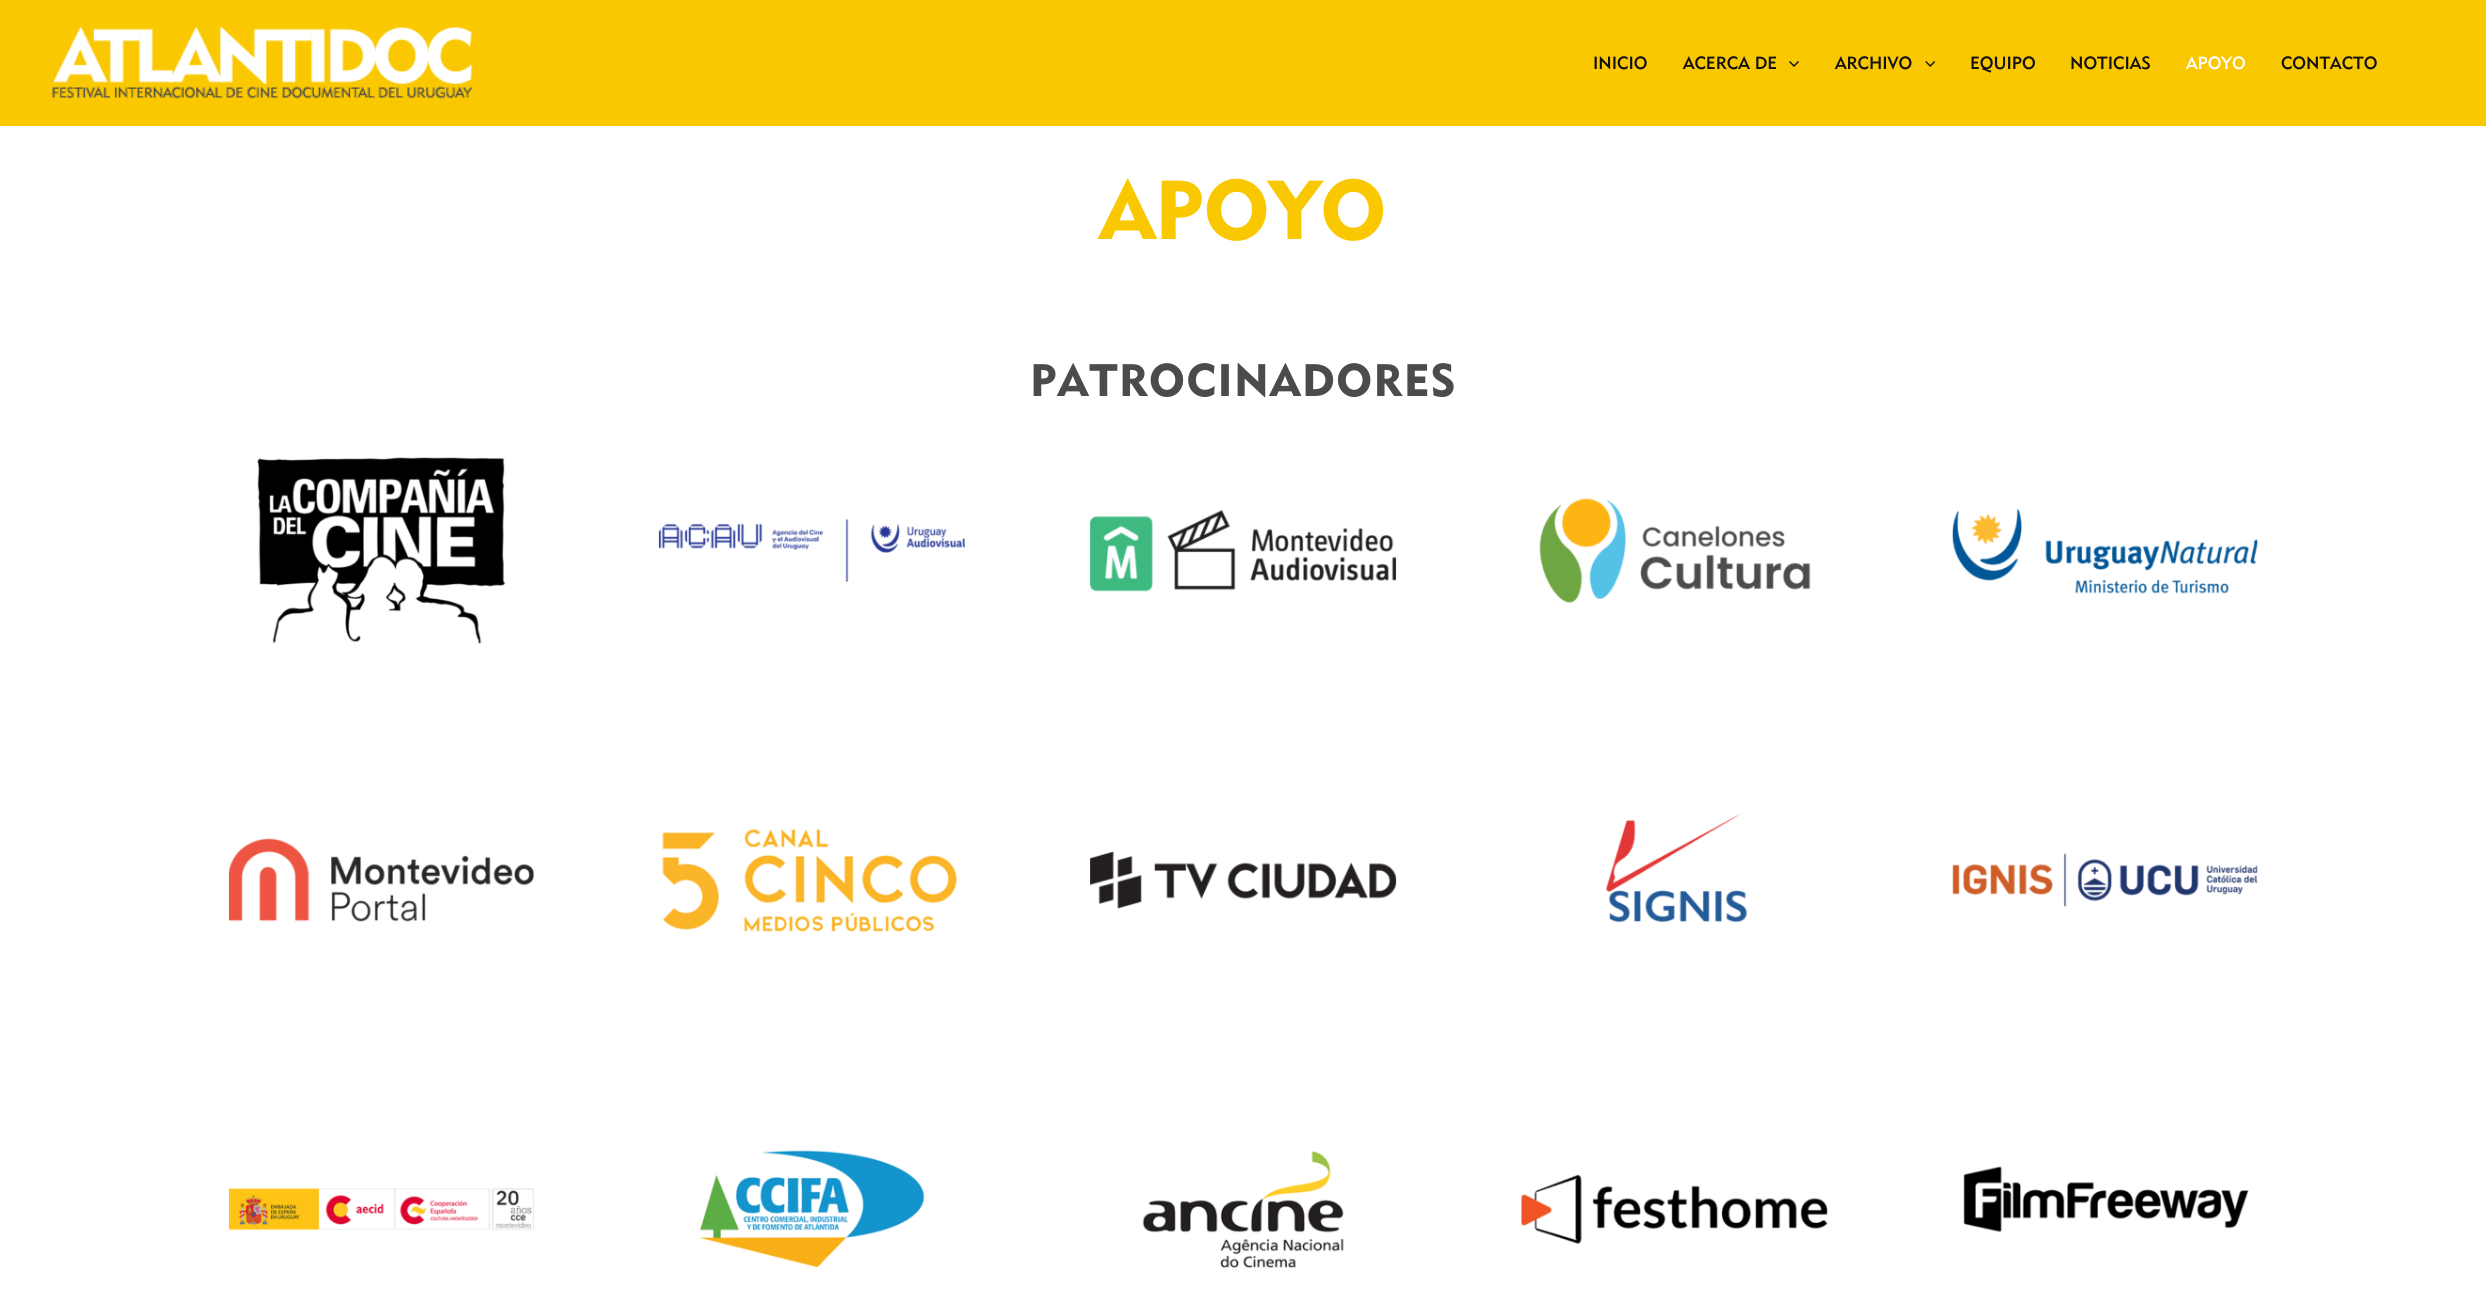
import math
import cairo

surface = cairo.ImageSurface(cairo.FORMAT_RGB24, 2486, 1302)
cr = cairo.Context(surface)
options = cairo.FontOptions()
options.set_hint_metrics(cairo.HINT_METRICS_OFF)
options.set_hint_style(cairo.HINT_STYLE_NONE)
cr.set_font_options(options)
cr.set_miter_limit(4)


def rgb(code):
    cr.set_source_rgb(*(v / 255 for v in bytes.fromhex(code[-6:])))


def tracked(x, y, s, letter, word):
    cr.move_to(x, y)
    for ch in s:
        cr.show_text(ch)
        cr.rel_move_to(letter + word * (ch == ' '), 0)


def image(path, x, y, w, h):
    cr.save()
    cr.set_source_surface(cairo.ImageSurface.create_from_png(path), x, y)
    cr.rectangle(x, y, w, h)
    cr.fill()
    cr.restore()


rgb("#ffffff")
cr.paint()
rgb("#fac800")
cr.rectangle(0, 0, 2486, 126)
cr.fill()
image("img/1.png", 52, 27, 421, 72)
image("img/2.png", 1789, 61, 10, 6)
image("img/3.png", 1925, 61, 10, 6)
image("img/4.png", 257, 457, 248, 187)
image("img/5.png", 658, 519, 307, 63)
image("img/6.png", 1090, 509, 307, 83)
image("img/7.png", 1539, 498, 272, 105)
image("img/8.png", 1952, 508, 306, 86)
image("img/9.png", 228, 838, 306, 84)
image("img/10.png", 662, 828, 295, 105)
image("img/11.png", 1090, 851, 307, 58)
image("img/12.png", 1606, 813, 142, 110)
image("img/13.png", 1952, 853, 306, 54)
image("img/14.png", 228, 1188, 306, 43)
image("img/15.png", 699, 1150, 226, 118)
image("img/16.png", 1142, 1150, 202, 118)
image("img/17.png", 1521, 1174, 307, 70)
image("img/18.png", 1963, 1166, 286, 67)
cr.select_font_face("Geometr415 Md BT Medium")
cr.set_font_size(17.5)
rgb("#111111")
for x, y, s in [
    (1593, 69, "INICIO"),
    (1683, 69, "ACERCA DE"),
    (1835, 69, "ARCHIVO"),
    (1970, 69, "EQUIPO"),
    (2070, 69, "NOTICIAS"),
]:
    cr.move_to(x, y)
    cr.show_text(s)
rgb("#ffffff")
cr.move_to(2186, 69)
cr.show_text("APOYO")
rgb("#111111")
cr.move_to(2281, 69)
cr.show_text("CONTACTO")
cr.select_font_face("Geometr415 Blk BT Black")
cr.set_font_size(82.5)
rgb("#fac800")
cr.move_to(1100, 239)
cr.show_text("APOYO")
cr.set_font_size(45)
rgb("#4b4b4b")
tracked(1030, 396, "PATROCINADORES", 1.5, 0)
surface.write_to_png("page.png")
